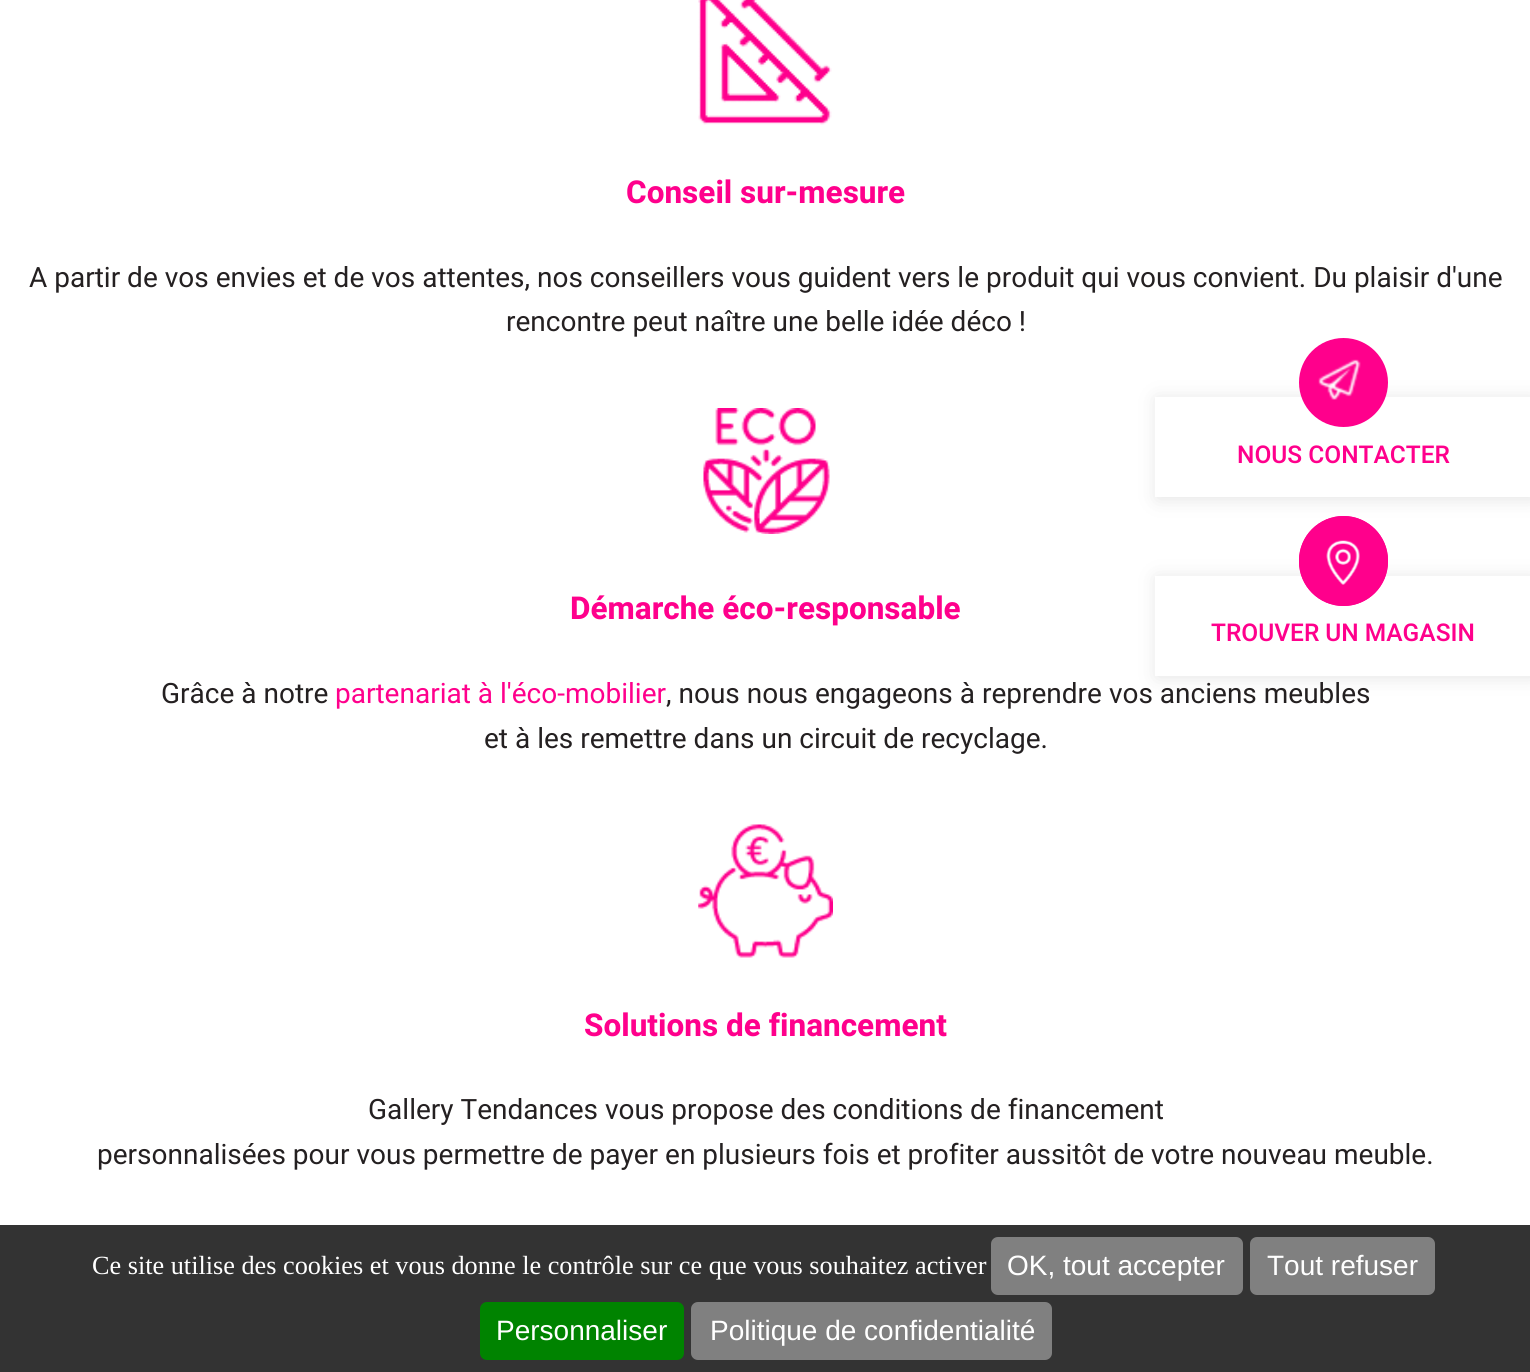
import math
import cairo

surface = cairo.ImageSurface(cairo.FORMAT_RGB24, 1530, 1372)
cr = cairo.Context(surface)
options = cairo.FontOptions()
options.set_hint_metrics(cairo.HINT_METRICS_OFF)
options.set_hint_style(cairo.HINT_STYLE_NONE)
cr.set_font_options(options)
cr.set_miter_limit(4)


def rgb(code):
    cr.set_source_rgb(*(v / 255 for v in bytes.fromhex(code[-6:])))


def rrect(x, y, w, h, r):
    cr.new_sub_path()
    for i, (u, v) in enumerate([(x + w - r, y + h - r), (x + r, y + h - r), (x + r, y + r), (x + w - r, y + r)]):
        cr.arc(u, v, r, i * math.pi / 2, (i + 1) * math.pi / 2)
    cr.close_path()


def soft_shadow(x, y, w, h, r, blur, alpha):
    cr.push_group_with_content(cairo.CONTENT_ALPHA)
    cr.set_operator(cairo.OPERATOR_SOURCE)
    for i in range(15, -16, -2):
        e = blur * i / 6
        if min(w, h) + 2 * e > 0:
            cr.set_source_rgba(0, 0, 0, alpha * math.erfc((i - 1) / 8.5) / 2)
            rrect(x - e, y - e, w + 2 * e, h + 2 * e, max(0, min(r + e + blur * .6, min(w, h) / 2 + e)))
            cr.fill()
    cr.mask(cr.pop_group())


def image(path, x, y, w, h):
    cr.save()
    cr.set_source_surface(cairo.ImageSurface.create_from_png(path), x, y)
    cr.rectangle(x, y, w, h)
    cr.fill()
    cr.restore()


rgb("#ffffff")
cr.paint()
image("img/1.png", 698, 0, 134, 125)
image("img/2.png", 703, 408, 127, 126)
image("img/3.png", 698, 824, 135, 134)
rgb("#e3e3e3")
soft_shadow(1157, 399, 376, 100, 0, 9, 1)
rgb("#ffffff")
cr.rectangle(1155, 397, 375, 100)
cr.fill()
rgb("#ff008c")
cr.arc(1343.5, 382.5, 44.5, 0, 2 * math.pi)
cr.fill()
image("img/4.png", 1318, 359, 43, 41)
rgb("#e3e3e3")
soft_shadow(1157, 578, 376, 99, 0, 9, 1)
rgb("#ffffff")
cr.rectangle(1155, 576, 375, 100)
cr.fill()
rgb("#ff008c")
rrect(1299, 516, 89, 90, 44.5)
cr.fill()
image("img/5.png", 1326, 540, 34, 45)
rrect(1300, 517, 87, 88, 43.5)
cr.stroke()
rgb("#333333")
cr.rectangle(0, 1225, 1530, 147)
cr.fill()
rgb("#808080")
rrect(991, 1237, 252, 58, 7)
cr.fill()
rrect(1250, 1237, 185, 58, 7)
cr.fill()
rgb("#008300")
rrect(480, 1302, 204, 58, 7)
cr.fill()
rgb("#808080")
rrect(691, 1302, 361, 58, 7)
cr.fill()
cr.select_font_face("Heebo", cairo.FONT_SLANT_NORMAL, cairo.FONT_WEIGHT_BOLD)
cr.set_font_size(31.5)
rgb("#ff008c")
cr.move_to(626, 203)
cr.show_text("Conseil sur-mesure")
cr.select_font_face("Heebo")
cr.set_font_size(28)
rgb("#242021")
cr.move_to(29, 287)
cr.show_text("A partir de vos envies et de vos attentes, nos conseillers vous guident vers le produit qui vous convient. Du plaisir d'une")
cr.move_to(506, 331)
cr.show_text("rencontre peut naître une belle idée déco !")
cr.select_font_face("Heebo", cairo.FONT_SLANT_NORMAL, cairo.FONT_WEIGHT_BOLD)
cr.set_font_size(31.5)
rgb("#ff008c")
cr.move_to(570, 619)
cr.show_text("Démarche éco-responsable")
cr.select_font_face("Heebo")
cr.set_font_size(28)
rgb("#242021")
cr.move_to(161, 703)
cr.show_text("Grâce à notre")
rgb("#ff008c")
cr.move_to(335, 703)
cr.show_text("partenariat à l'éco-mobilier")
rgb("#242021")
cr.move_to(666, 703)
cr.show_text(", nous nous engageons à reprendre vos anciens meubles")
cr.move_to(484, 748)
cr.show_text("et à les remettre dans un circuit de recyclage.")
cr.select_font_face("Heebo", cairo.FONT_SLANT_NORMAL, cairo.FONT_WEIGHT_BOLD)
cr.set_font_size(31.5)
rgb("#ff008c")
cr.move_to(584, 1036)
cr.show_text("Solutions de financement")
cr.select_font_face("Heebo")
cr.set_font_size(28)
rgb("#242021")
cr.move_to(368, 1119)
cr.show_text("Gallery Tendances vous propose des conditions de financement")
cr.move_to(97, 1164)
cr.show_text("personnalisées pour vous permettre de payer en plusieurs fois et profiter aussitôt de votre nouveau meuble.")
cr.select_font_face("Heebo Medium")
cr.set_font_size(24.5)
rgb("#ff008c")
cr.move_to(1237, 463)
cr.show_text("NOUS CONTACTER")
cr.move_to(1211, 641)
cr.show_text("TROUVER UN MAGASIN")
cr.select_font_face("Liberation Serif")
cr.set_font_size(26.25)
rgb("#ffffff")
cr.move_to(92, 1274)
cr.show_text("Ce site utilise des cookies et vous donne le contrôle sur ce que vous souhaitez activer")
cr.select_font_face("Liberation Sans")
cr.set_font_size(28)
for x, y, s in [
    (1007, 1275, "OK, tout accepter"),
    (1267, 1275, "Tout refuser"),
    (496, 1340, "Personnaliser"),
    (710, 1340, "Politique de confidentialité"),
]:
    cr.move_to(x, y)
    cr.show_text(s)
surface.write_to_png("page.png")
